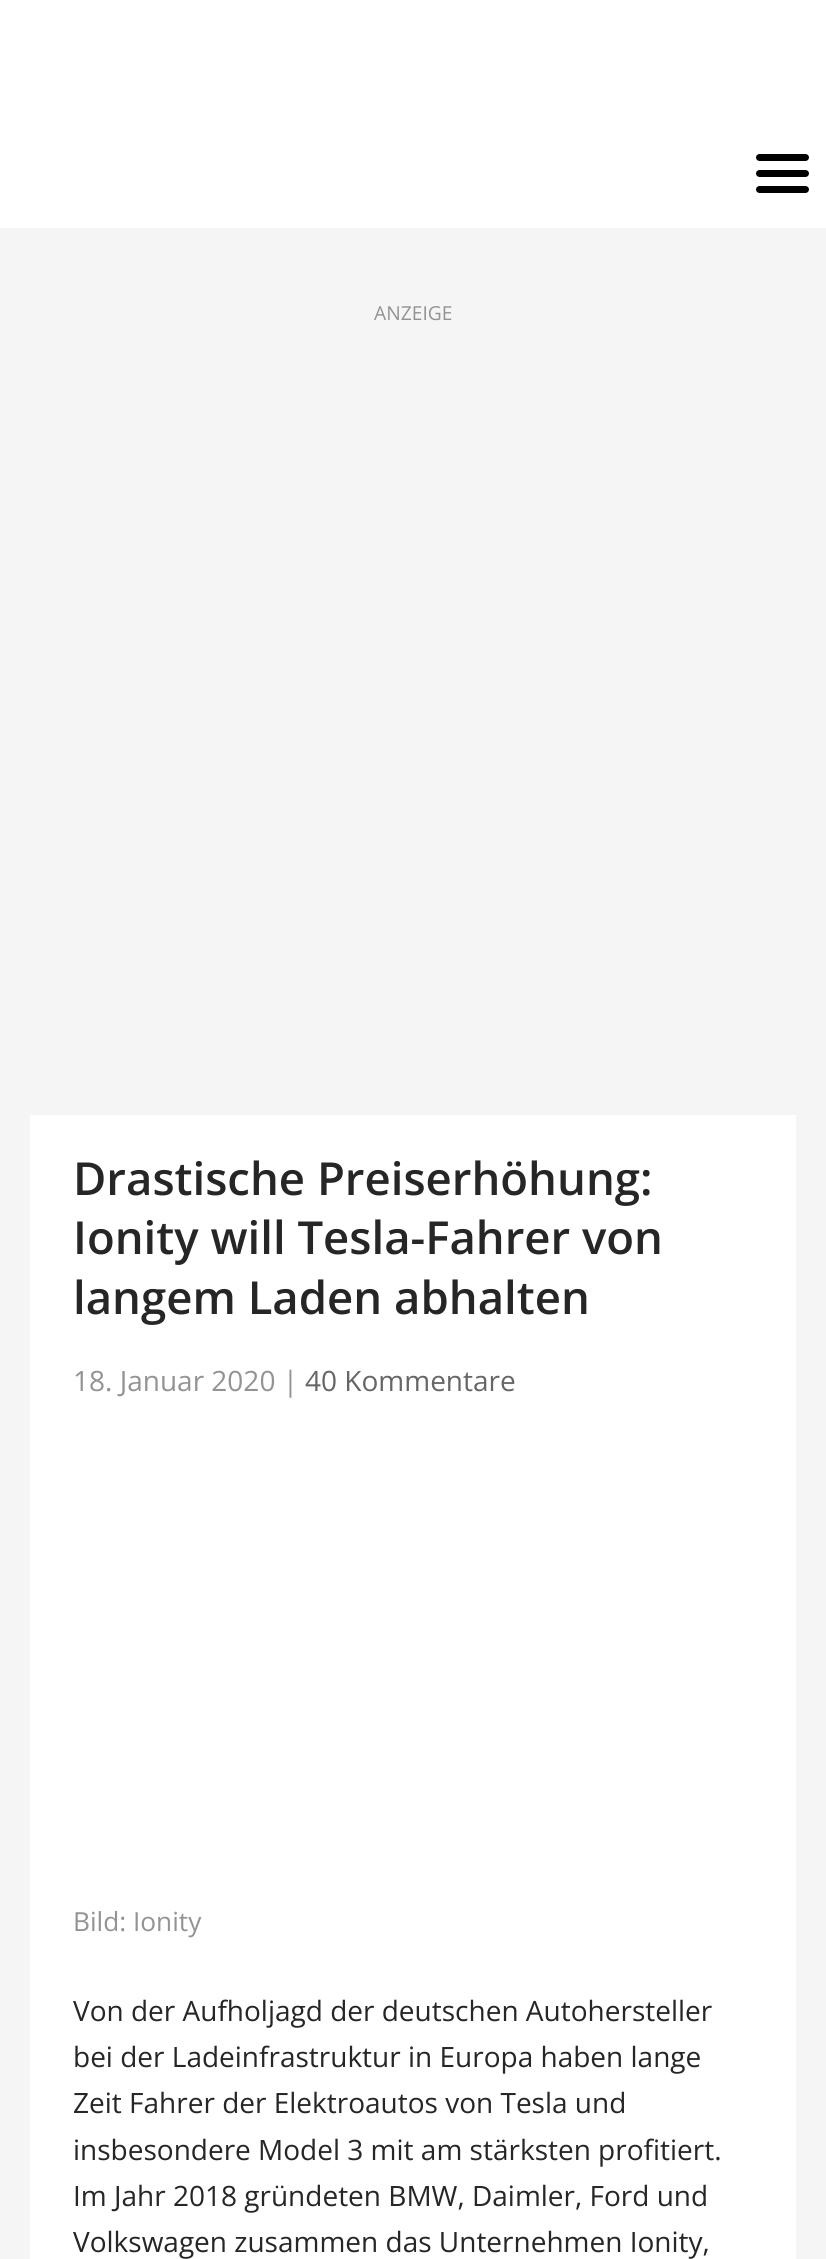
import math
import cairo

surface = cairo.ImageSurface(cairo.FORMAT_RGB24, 826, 2259)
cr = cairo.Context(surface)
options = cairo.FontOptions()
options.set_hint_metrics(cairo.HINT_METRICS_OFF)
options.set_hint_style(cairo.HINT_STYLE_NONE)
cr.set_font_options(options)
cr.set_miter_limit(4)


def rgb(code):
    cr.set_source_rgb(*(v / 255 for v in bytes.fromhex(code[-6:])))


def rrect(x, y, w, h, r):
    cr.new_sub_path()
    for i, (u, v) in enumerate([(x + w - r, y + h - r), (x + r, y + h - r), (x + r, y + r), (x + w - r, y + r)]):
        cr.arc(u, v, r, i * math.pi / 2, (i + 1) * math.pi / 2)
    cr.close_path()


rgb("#f5f5f5")
cr.paint()
rgb("#ffffff")
cr.rectangle(0, 0, 826, 228)
cr.fill()
rgb("#000000")
rrect(756, 154, 53, 7, 3.5)
cr.fill()
rrect(756, 170, 53, 7, 3.5)
cr.fill()
rrect(756, 186, 53, 7, 3.5)
cr.fill()
rgb("#ffffff")
cr.rectangle(30, 1115, 766, 1144)
cr.fill()
cr.select_font_face("Open Sans")
cr.set_font_size(19.25)
rgb("#939393")
cr.move_to(374, 320)
cr.show_text("ANZEIGE")
cr.select_font_face("Open Sans SemiBold")
cr.set_font_size(45.5)
rgb("#262626")
for x, y, s in [
    (73, 1195, "Drastische Preiserhöhung:"),
    (73, 1254, "Ionity will Tesla-Fahrer von"),
    (73, 1314, "langem Laden abhalten"),
]:
    cr.move_to(x, y)
    cr.show_text(s)
cr.select_font_face("Open Sans")
cr.set_font_size(28)
rgb("#939393")
cr.move_to(73, 1391)
cr.show_text("18. Januar 2020 |")
rgb("#666666")
cr.move_to(305, 1391)
cr.show_text("40 Kommentare")
cr.set_font_size(26.25)
rgb("#939393")
cr.move_to(73, 1931)
cr.show_text("Bild: Ionity")
cr.set_font_size(28)
rgb("#262626")
for x, y, s in [
    (73, 2021, "Von der Aufholjagd der deutschen Autohersteller"),
    (73, 2067, "bei der Ladeinfrastruktur in Europa haben lange"),
    (73, 2113, "Zeit Fahrer der Elektroautos von Tesla und"),
    (73, 2160, "insbesondere Model 3 mit am stärksten profitiert."),
    (73, 2206, "Im Jahr 2018 gründeten BMW, Daimler, Ford und"),
    (73, 2252, "Volkswagen zusammen das Unternehmen Ionity,"),
]:
    cr.move_to(x, y)
    cr.show_text(s)
surface.write_to_png("page.png")
